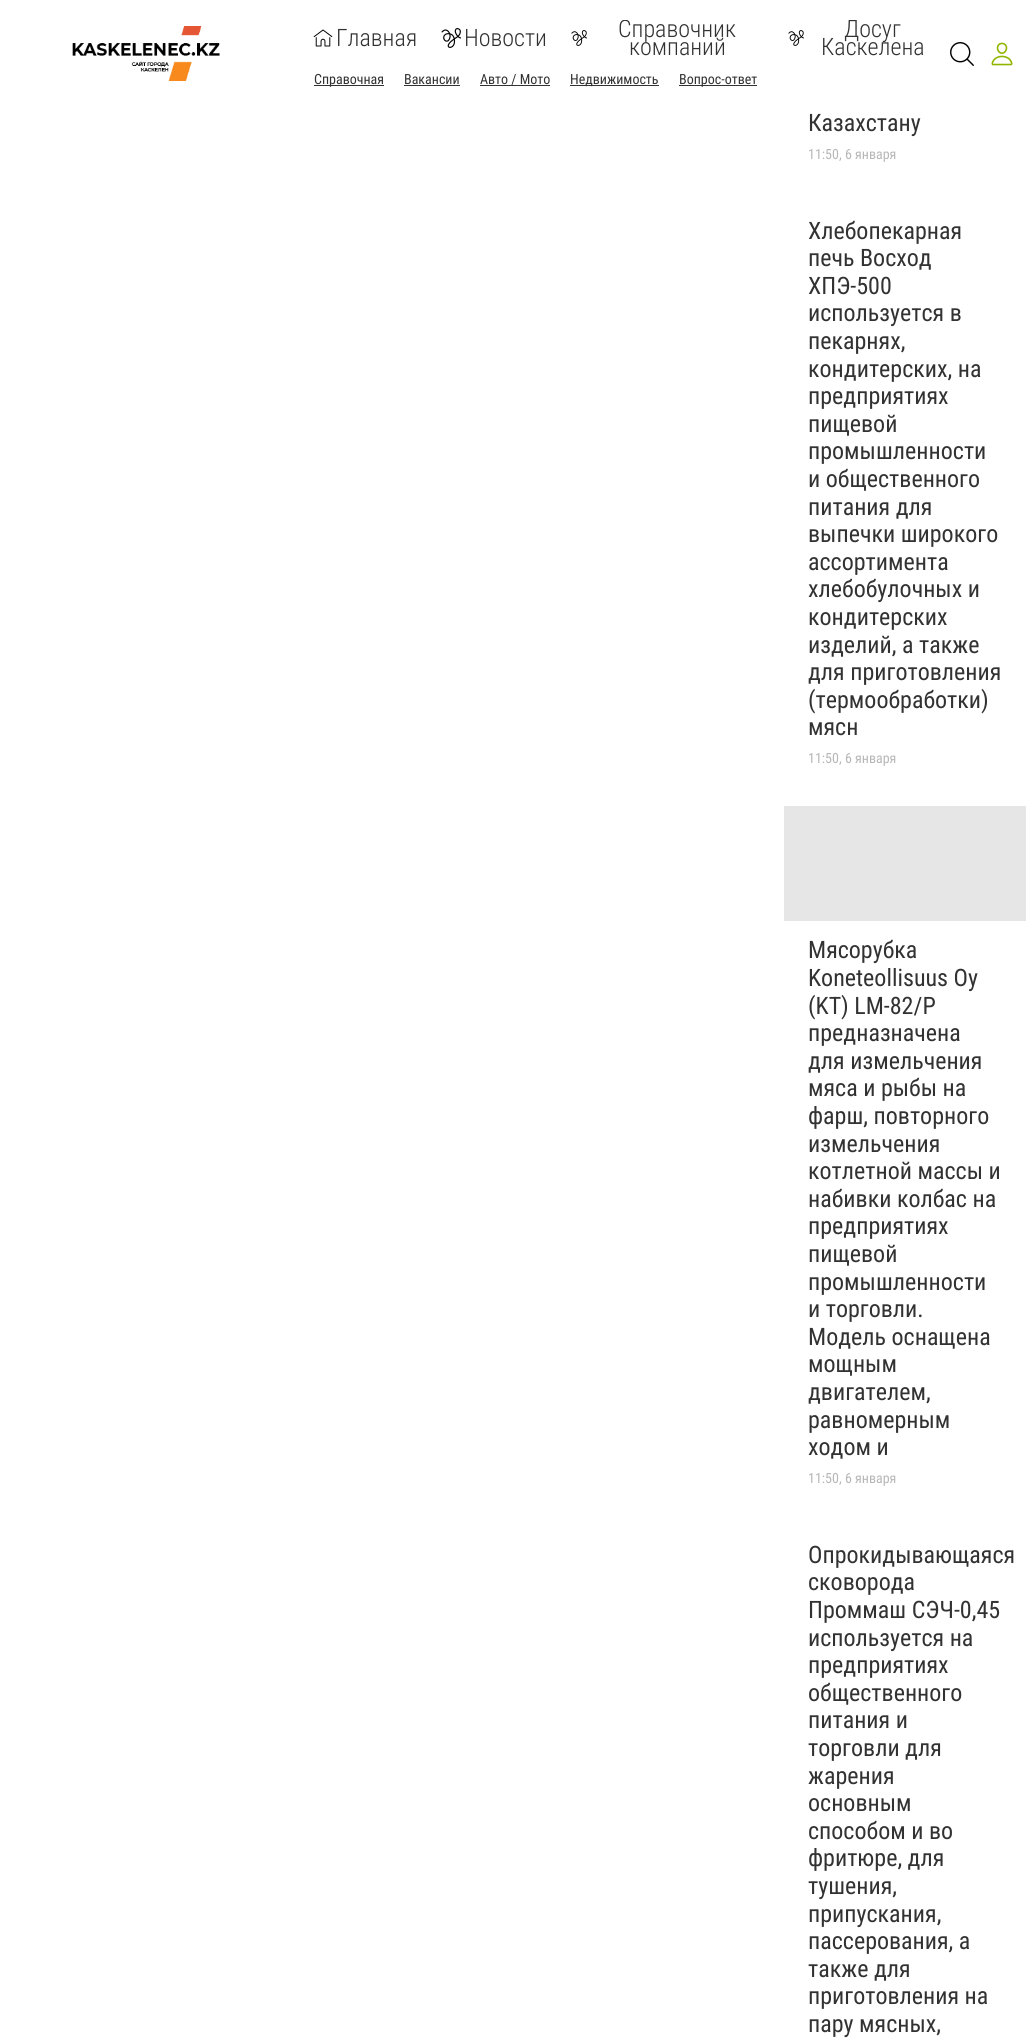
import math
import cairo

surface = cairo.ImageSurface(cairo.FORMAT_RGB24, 1034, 2044)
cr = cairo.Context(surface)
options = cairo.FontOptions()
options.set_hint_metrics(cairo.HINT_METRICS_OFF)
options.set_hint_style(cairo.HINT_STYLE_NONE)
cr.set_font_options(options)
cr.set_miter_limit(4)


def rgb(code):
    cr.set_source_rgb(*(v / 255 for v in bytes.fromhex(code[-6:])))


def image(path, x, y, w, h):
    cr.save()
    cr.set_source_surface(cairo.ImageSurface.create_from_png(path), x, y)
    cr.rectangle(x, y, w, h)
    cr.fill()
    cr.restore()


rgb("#ffffff")
cr.paint()
image("img/1.png", 72, 26, 148, 55)
image("img/2.png", 313, 29, 20, 18)
image("img/3.png", 441, 28, 20, 20)
image("img/4.png", 571, 30, 16, 16)
image("img/5.png", 788, 30, 16, 16)
for x, y, w, h, color in [
    (314, 85, 70, 1, "#323232"),
    (404, 85, 56, 1, "#323232"),
    (480, 85, 70, 1, "#323232"),
    (570, 85, 89, 1, "#323232"),
    (679, 85, 78, 1, "#323232"),
]:
    rgb(color)
    cr.rectangle(x, y, w, h)
    cr.fill()
image("img/6.png", 950, 42, 24, 24)
image("img/7.png", 991, 42, 22, 24)
rgb("#e6e6e6")
cr.rectangle(784, 806, 242, 115)
cr.fill()
cr.select_font_face("Roboto Condensed Light")
cr.set_font_size(24)
rgb("#323232")
cr.move_to(336, 46)
cr.show_text("Главная")
cr.move_to(464, 46)
cr.show_text("Новости")
cr.save()
cr.rectangle(571, 20, 193, 36)
cr.clip()
cr.move_to(618, 37)
cr.show_text("Справочник")
cr.restore()
cr.move_to(629, 55)
cr.show_text("компаний")
cr.save()
cr.rectangle(788, 20, 150, 36)
cr.clip()
cr.move_to(844, 37)
cr.show_text("Досуг")
cr.restore()
cr.move_to(821, 55)
cr.show_text("Каскелена")
cr.select_font_face("Roboto Condensed")
cr.set_font_size(14)
for x, y, s in [
    (314, 84, "Справочная"),
    (404, 84, "Вакансии"),
    (480, 84, "Авто / Мото"),
    (570, 84, "Недвижимость"),
    (679, 84, "Вопрос-ответ"),
]:
    cr.move_to(x, y)
    cr.show_text(s)
cr.set_font_size(24)
cr.move_to(808, 131)
cr.show_text("Казахстану")
cr.set_font_size(14)
rgb("#b7b7b7")
cr.move_to(808, 159)
cr.show_text("11:50, 6 января")
cr.set_font_size(24)
rgb("#323232")
for x, y, s in [
    (808, 239, "Хлебопекарная"),
    (808, 266, "печь Восход"),
    (808, 294, "ХПЭ-500"),
    (808, 321, "используется в"),
    (808, 349, "пекарнях,"),
    (808, 377, "кондитерских, на"),
    (808, 404, "предприятиях"),
    (808, 432, "пищевой"),
    (808, 459, "промышленности"),
    (808, 487, "и общественного"),
    (808, 515, "питания для"),
    (808, 542, "выпечки широкого"),
    (808, 570, "ассортимента"),
    (808, 597, "хлебобулочных и"),
    (808, 625, "кондитерских"),
    (808, 653, "изделий, а также"),
    (808, 680, "для приготовления"),
    (808, 708, "(термообработки)"),
    (808, 735, "мясн"),
]:
    cr.move_to(x, y)
    cr.show_text(s)
cr.set_font_size(14)
rgb("#b7b7b7")
cr.move_to(808, 763)
cr.show_text("11:50, 6 января")
cr.set_font_size(24)
rgb("#323232")
for x, y, s in [
    (808, 958, "Мясорубка"),
    (808, 986, "Koneteollisuus Oy"),
    (808, 1014, "(KT) LM-82/P"),
    (808, 1041, "предназначена"),
    (808, 1069, "для измельчения"),
    (808, 1096, "мяса и рыбы на"),
    (808, 1124, "фарш, повторного"),
    (808, 1152, "измельчения"),
    (808, 1179, "котлетной массы и"),
    (808, 1207, "набивки колбас на"),
    (808, 1234, "предприятиях"),
    (808, 1262, "пищевой"),
    (808, 1290, "промышленности"),
    (808, 1317, "и торговли."),
    (808, 1345, "Модель оснащена"),
    (808, 1372, "мощным"),
    (808, 1400, "двигателем,"),
    (808, 1428, "равномерным"),
    (808, 1455, "ходом и"),
]:
    cr.move_to(x, y)
    cr.show_text(s)
cr.set_font_size(14)
rgb("#b7b7b7")
cr.move_to(808, 1483)
cr.show_text("11:50, 6 января")
cr.set_font_size(24)
rgb("#323232")
for x, y, s in [
    (808, 1563, "Опрокидывающаяся"),
    (808, 1590, "сковорода"),
    (808, 1618, "Проммаш СЭЧ-0,45"),
    (808, 1646, "используется на"),
    (808, 1673, "предприятиях"),
    (808, 1701, "общественного"),
    (808, 1728, "питания и"),
    (808, 1756, "торговли для"),
    (808, 1784, "жарения"),
    (808, 1811, "основным"),
    (808, 1839, "способом и во"),
    (808, 1866, "фритюре, для"),
    (808, 1894, "тушения,"),
    (808, 1922, "припускания,"),
    (808, 1949, "пассерования, а"),
    (808, 1977, "также для"),
    (808, 2004, "приготовления на"),
    (808, 2032, "пару мясных,"),
]:
    cr.move_to(x, y)
    cr.show_text(s)
surface.write_to_png("page.png")
